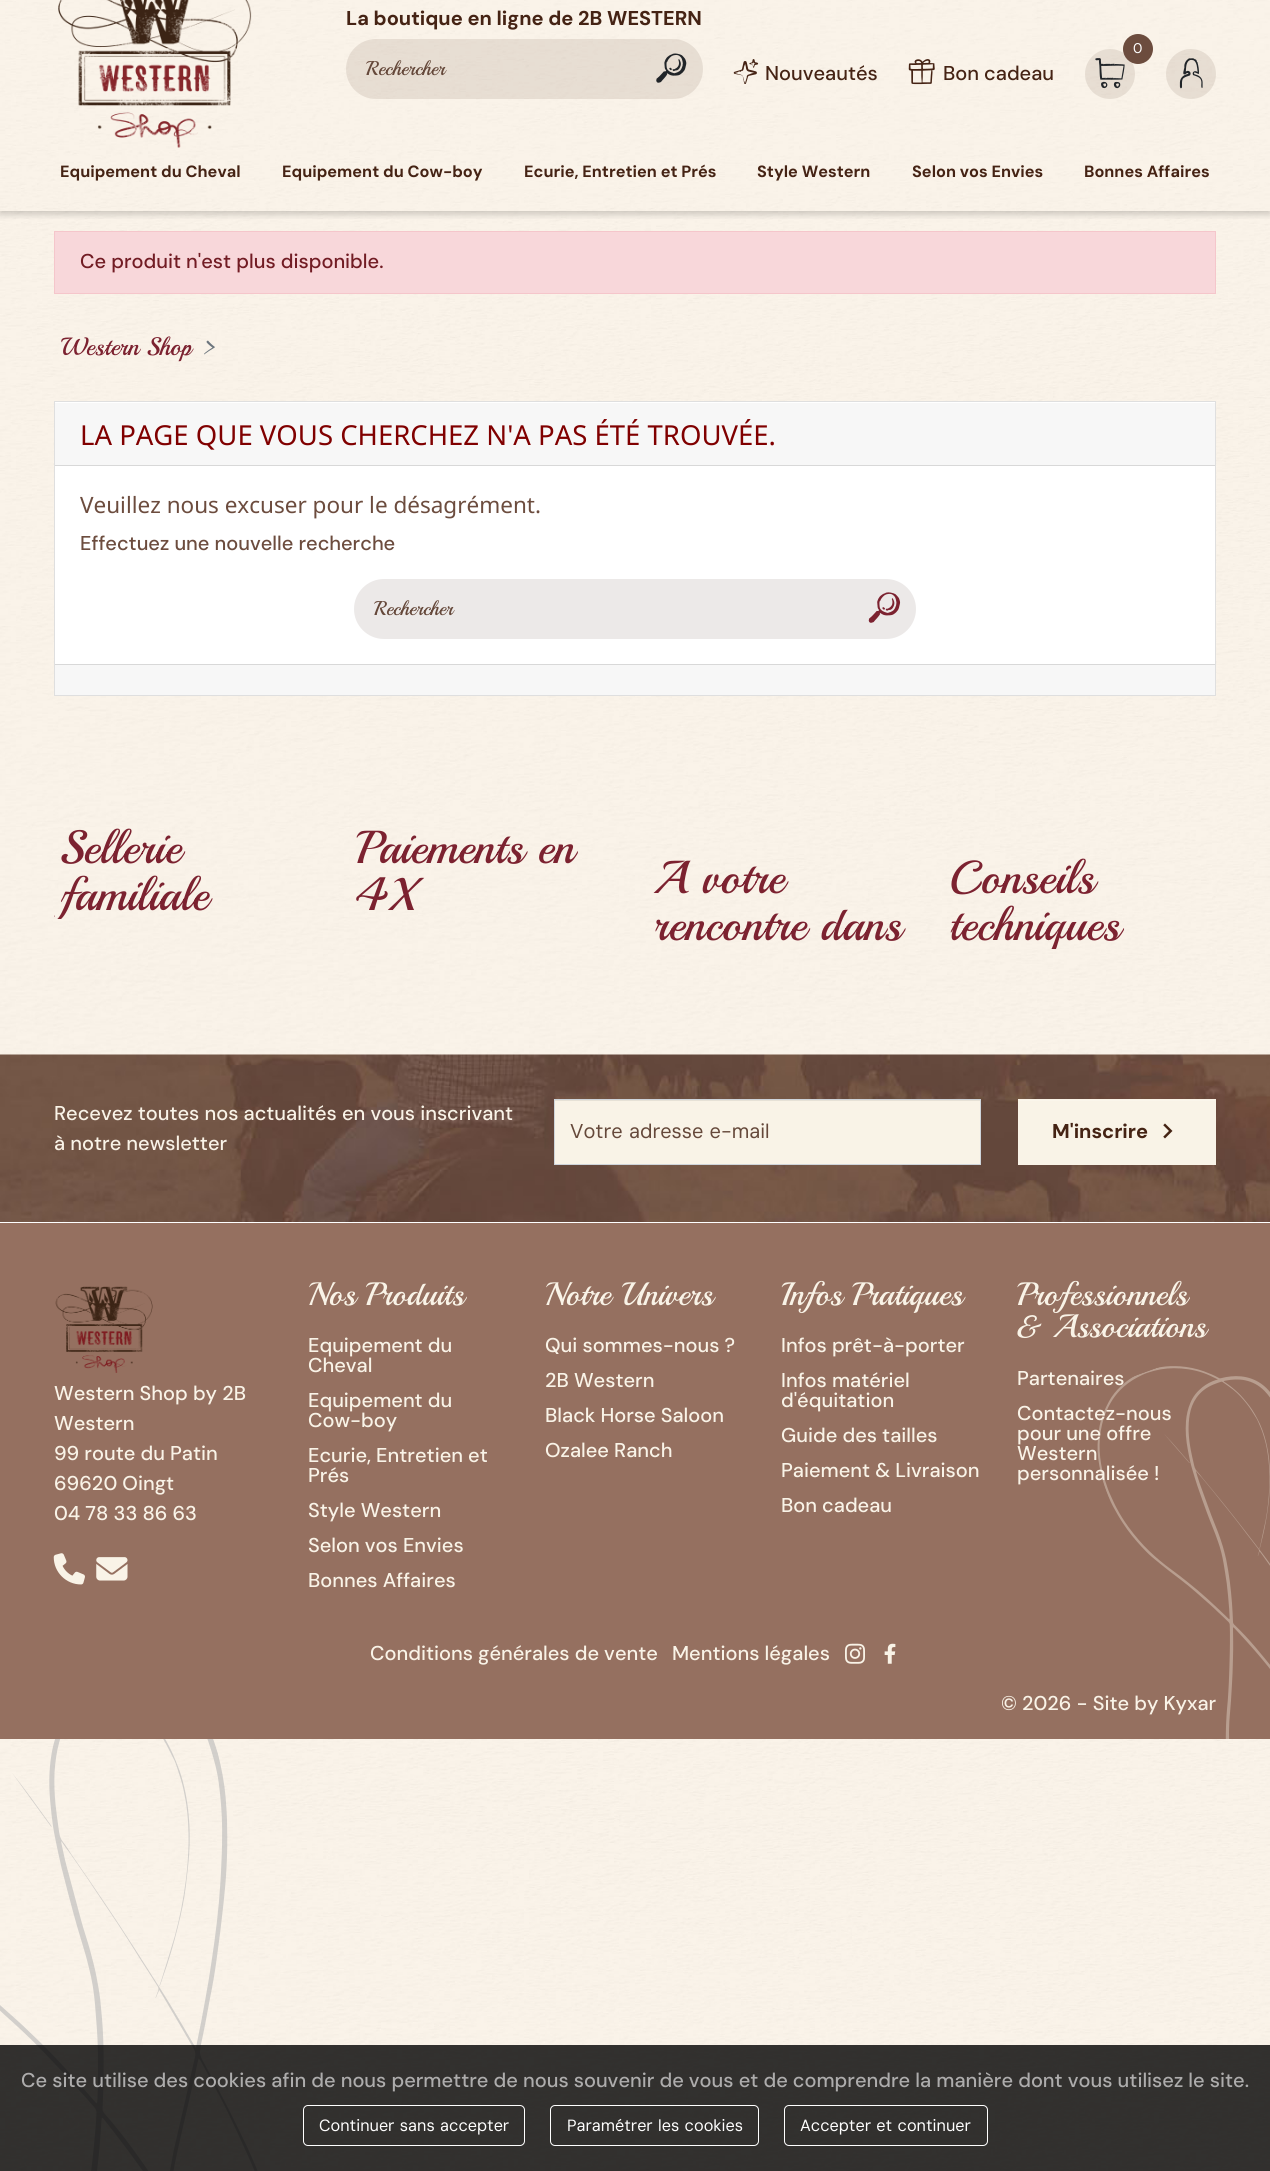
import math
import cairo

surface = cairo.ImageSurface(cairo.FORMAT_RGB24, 1270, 2171)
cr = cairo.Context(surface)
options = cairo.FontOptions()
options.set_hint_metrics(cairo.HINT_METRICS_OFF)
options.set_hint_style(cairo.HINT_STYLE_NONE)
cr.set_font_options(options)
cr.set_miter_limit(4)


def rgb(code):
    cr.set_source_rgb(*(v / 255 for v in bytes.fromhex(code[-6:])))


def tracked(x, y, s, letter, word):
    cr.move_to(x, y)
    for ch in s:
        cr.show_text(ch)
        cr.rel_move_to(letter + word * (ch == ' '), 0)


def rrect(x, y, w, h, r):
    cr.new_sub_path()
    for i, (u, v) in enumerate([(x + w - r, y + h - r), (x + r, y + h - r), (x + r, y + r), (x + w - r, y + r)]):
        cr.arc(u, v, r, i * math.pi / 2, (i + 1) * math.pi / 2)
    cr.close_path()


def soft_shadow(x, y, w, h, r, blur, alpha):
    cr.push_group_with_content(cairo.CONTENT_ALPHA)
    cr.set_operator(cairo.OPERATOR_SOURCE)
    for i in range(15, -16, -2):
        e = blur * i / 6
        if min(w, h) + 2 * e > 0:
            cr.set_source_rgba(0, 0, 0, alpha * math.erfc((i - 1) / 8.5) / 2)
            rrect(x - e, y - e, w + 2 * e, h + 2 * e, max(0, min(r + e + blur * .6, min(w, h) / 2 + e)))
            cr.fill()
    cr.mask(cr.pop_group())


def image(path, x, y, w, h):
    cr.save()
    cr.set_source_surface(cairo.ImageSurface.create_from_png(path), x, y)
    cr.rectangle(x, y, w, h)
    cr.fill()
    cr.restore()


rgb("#ffffff")
cr.paint()
image("img/1.png", 0, 0, 1270, 2171)
cr.save()
cr.rectangle(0, 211, 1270, 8)
cr.clip()
rgb("#000000")
soft_shadow(0, -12, 1270, 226, 0, 4, 0.2)
cr.restore()
image("img/2.png", 58, 0, 194, 148)
cr.set_source_rgba(0.271, 0.137, 0.078, 0.1)
rrect(346, 39, 357, 60, 30)
cr.fill()
image("img/3.png", 656, 53, 31, 30)
image("img/4.png", 733, 59, 26, 25)
image("img/5.png", 908, 59, 27, 26)
cr.arc(1110, 74, 25, 0, 2 * math.pi)
cr.fill()
image("img/6.png", 1095, 58, 30, 31)
rgb("#6c4c3e")
cr.arc(1138, 49, 15, 0, 2 * math.pi)
cr.fill()
cr.set_source_rgba(0.271, 0.137, 0.078, 0.1)
cr.arc(1191, 74, 25, 0, 2 * math.pi)
cr.fill()
image("img/7.png", 1179, 58, 24, 31)
rgb("#f8d7da")
cr.rectangle(54.5, 231.5, 1161, 62)
cr.fill_preserve()
rgb("#f5c6cb")
cr.set_line_width(1)
cr.stroke()
rgb("#ffffff")
cr.rectangle(55, 402, 1160, 262)
cr.fill()
cr.rectangle(54.5, 401.5, 1161, 294)
rgb("#dfdfdf")
cr.stroke()
rgb("#f7f7f7")
cr.rectangle(55, 403, 1160, 62)
cr.fill()
rgb("#d8d8d8")
cr.rectangle(55, 465, 1160, 1)
cr.fill()
rgb("#ece9e8")
rrect(354, 579, 562, 60, 30)
cr.fill()
image("img/8.png", 868, 592, 33, 31)
rgb("#f7f7f7")
cr.rectangle(55, 665, 1160, 30)
cr.fill()
rgb("#d8d8d8")
cr.rectangle(55, 664, 1160, 1)
cr.fill()
image("img/9.png", 0, 1739, 258, 432)
rgb("#ffffff")
cr.rectangle(0, 1222, 1270, 1)
cr.fill()
image("img/10.png", 0, 1054, 1270, 168)
rgb("#f9f3e7")
cr.rectangle(555, 1101, 425, 63)
cr.fill()
rgb("#e6e1d6")
cr.rectangle(555, 1100, 425, 1)
cr.fill()
cr.rectangle(554.5, 1099.5, 426, 65)
rgb("#ced4da")
cr.stroke()
rgb("#f9f3e7")
cr.rectangle(1018, 1099, 198, 66)
cr.fill()
rgb("#faf5eb")
cr.rectangle(1019, 1100, 196, 1)
cr.fill()
image("img/11.png", 1163, 1123, 10, 16)
rgb("#957060")
cr.rectangle(0, 1223, 1270, 516)
cr.fill()
cr.set_source_rgba(0, 0, 0, 0.8)
cr.rectangle(0, 2045, 1270, 126)
cr.fill()
rrect(303.5, 2105.5, 221, 40, 4.5)
rgb("#ffffff")
cr.stroke()
rrect(550.5, 2105.5, 208, 40, 4.5)
cr.stroke()
rrect(784.5, 2105.5, 203, 40, 4.5)
cr.stroke()
image("img/12.png", 55, 1286, 98, 87)
image("img/13.png", 53, 1553, 32, 32)
image("img/14.png", 96, 1557, 32, 24)
image("img/15.png", 845, 1643, 20, 21)
image("img/16.png", 884, 1643, 12, 21)
cr.select_font_face("DM Sans", cairo.FONT_SLANT_NORMAL, cairo.FONT_WEIGHT_BOLD)
cr.set_font_size(20)
rgb("#452314")
cr.move_to(346, 25)
cr.show_text("La boutique en ligne de 2B WESTERN")
cr.select_font_face("Playball")
rgb("#65483a")
cr.move_to(366, 75)
cr.show_text("Rechercher")
cr.select_font_face("DM Sans Medium")
rgb("#452314")
cr.move_to(765, 80)
cr.show_text("Nouveautés")
cr.move_to(943, 80)
cr.show_text("Bon cadeau")
cr.select_font_face("DM Sans")
cr.set_font_size(14)
rgb("#ffffff")
cr.move_to(1133, 53)
cr.show_text("0")
cr.select_font_face("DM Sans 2", cairo.FONT_SLANT_NORMAL, cairo.FONT_WEIGHT_BOLD)
cr.set_font_size(16.25)
rgb("#452314")
for x, y, s in [
    (60, 177, "Equipement du Cheval"),
    (282, 177, "Equipement du Cow-boy"),
    (524, 177, "Ecurie, Entretien et Prés"),
    (757, 177, "Style Western"),
    (912, 177, "Selon vos Envies"),
    (1084, 177, "Bonnes Affaires"),
]:
    cr.move_to(x, y)
    cr.show_text(s)
cr.select_font_face("DM Sans Medium")
cr.set_font_size(20)
rgb("#721c24")
cr.move_to(80, 268)
cr.show_text("Ce produit n'est plus disponible.")
cr.select_font_face("Playball")
cr.set_font_size(25)
rgb("#7c2230")
cr.move_to(61, 355)
cr.show_text("Western Shop")
rgb("#6c757d")
cr.move_to(202, 355)
cr.show_text(">")
cr.select_font_face("Noto Sans")
cr.set_font_size(27.5)
rgb("#800000")
cr.move_to(80, 445)
cr.show_text("LA PAGE QUE VOUS CHERCHEZ N'A PAS ÉTÉ TROUVÉE.")
cr.set_font_size(22.5)
rgb("#6c4c3e")
cr.move_to(80, 513)
cr.show_text("Veuillez nous excuser pour le désagrément.")
cr.select_font_face("DM Sans Medium")
cr.set_font_size(20)
cr.move_to(80, 550)
cr.show_text("Effectuez une nouvelle recherche")
cr.select_font_face("Playball")
rgb("#65483a")
cr.move_to(374, 615)
cr.show_text("Rechercher")
cr.set_font_size(46.25)
rgb("#7c2230")
cr.move_to(59, 863)
cr.show_text("Sellerie")
cr.save()
cr.rectangle(54, 826, 272, 93)
cr.clip()
cr.move_to(59, 910)
cr.show_text("familiale")
cr.restore()
for x, y, s in [
    (356, 863, "Paiements en"),
    (356, 910, "4X"),
    (653, 893, "A votre"),
    (653, 940, "rencontre dans"),
    (949, 893, "Conseils"),
]:
    cr.move_to(x, y)
    cr.show_text(s)
cr.save()
cr.rectangle(945, 856, 271, 93)
cr.clip()
cr.move_to(949, 940)
cr.show_text("techniques")
cr.restore()
cr.select_font_face("DM Sans Medium")
cr.set_font_size(20)
rgb("#f9f3e7")
cr.move_to(54, 1120)
cr.show_text("Recevez toutes nos actualités en vous inscrivant")
cr.move_to(54, 1150)
cr.show_text("à notre newsletter")
cr.select_font_face("DM Sans 2")
rgb("#65483a")
tracked(570, 1138, "Votre adresse e-mail", 0, 1)
cr.select_font_face("DM Sans", cairo.FONT_SLANT_NORMAL, cairo.FONT_WEIGHT_BOLD)
rgb("#452314")
cr.move_to(1052, 1138)
cr.show_text("M'inscrire")
cr.select_font_face("Playball")
cr.set_font_size(32.5)
rgb("#f9f3e7")
cr.move_to(308, 1305)
cr.show_text("Nos Produits")
cr.select_font_face("DM Sans Medium")
cr.set_font_size(20)
for x, y, s in [
    (308, 1352, "Equipement du"),
    (308, 1372, "Cheval"),
    (308, 1407, "Equipement du"),
    (308, 1427, "Cow-boy"),
    (308, 1462, "Ecurie, Entretien et"),
    (308, 1482, "Prés"),
    (308, 1517, "Style Western"),
    (308, 1552, "Selon vos Envies"),
    (308, 1587, "Bonnes Affaires"),
]:
    cr.move_to(x, y)
    cr.show_text(s)
cr.select_font_face("Playball")
cr.set_font_size(32.5)
cr.move_to(545, 1305)
cr.show_text("Notre Univers")
cr.select_font_face("DM Sans Medium")
cr.set_font_size(20)
for x, y, s in [
    (545, 1352, "Qui sommes-nous ?"),
    (545, 1387, "2B Western"),
    (545, 1422, "Black Horse Saloon"),
    (545, 1457, "Ozalee Ranch"),
]:
    cr.move_to(x, y)
    cr.show_text(s)
cr.select_font_face("Playball")
cr.set_font_size(32.5)
cr.move_to(781, 1305)
cr.show_text("Infos Pratiques")
cr.select_font_face("DM Sans Medium")
cr.set_font_size(20)
for x, y, s in [
    (781, 1352, "Infos prêt-à-porter"),
    (781, 1387, "Infos matériel"),
    (781, 1407, "d'équitation"),
    (781, 1442, "Guide des tailles"),
    (781, 1477, "Paiement & Livraison"),
    (781, 1512, "Bon cadeau"),
]:
    cr.move_to(x, y)
    cr.show_text(s)
cr.select_font_face("Playball")
cr.set_font_size(32.5)
cr.move_to(1017, 1305)
cr.show_text("Professionnels")
cr.move_to(1017, 1337)
cr.show_text("& Associations")
cr.select_font_face("DM Sans Medium")
cr.set_font_size(20)
for x, y, s in [
    (1017, 1385, "Partenaires"),
    (1017, 1420, "Contactez-nous"),
    (1017, 1440, "pour une offre"),
    (1017, 1460, "Western"),
    (1017, 1480, "personnalisée !"),
]:
    cr.move_to(x, y)
    cr.show_text(s)
rgb("#adacac")
cr.move_to(21, 2087)
cr.show_text("Ce site utilise des cookies afin de nous permettre de nous souvenir de vous et de comprendre la manière dont vous utilisez le site.")
cr.select_font_face("DM Sans 2")
cr.set_font_size(16.25)
rgb("#ffffff")
for x, y, s in [
    (319, 2131, "Continuer sans accepter"),
    (567, 2131, "Paramétrer les cookies"),
    (800, 2131, "Accepter et continuer"),
]:
    tracked(x, y, s, 0, 1)
cr.select_font_face("DM Sans Medium")
cr.set_font_size(20)
rgb("#f9f3e7")
for x, y, s in [
    (54, 1400, "Western Shop by 2B"),
    (54, 1430, "Western"),
    (54, 1460, "99 route du Patin"),
    (54, 1490, "69620 Oingt"),
    (54, 1520, "04 78 33 86 63"),
    (370, 1660, "Conditions générales de vente"),
    (672, 1660, "Mentions légales"),
    (1001, 1710, "© 2026 - Site by Kyxar"),
]:
    cr.move_to(x, y)
    cr.show_text(s)
image("img/17.png", 1097, 1366, 173, 373)
surface.write_to_png("page.png")
